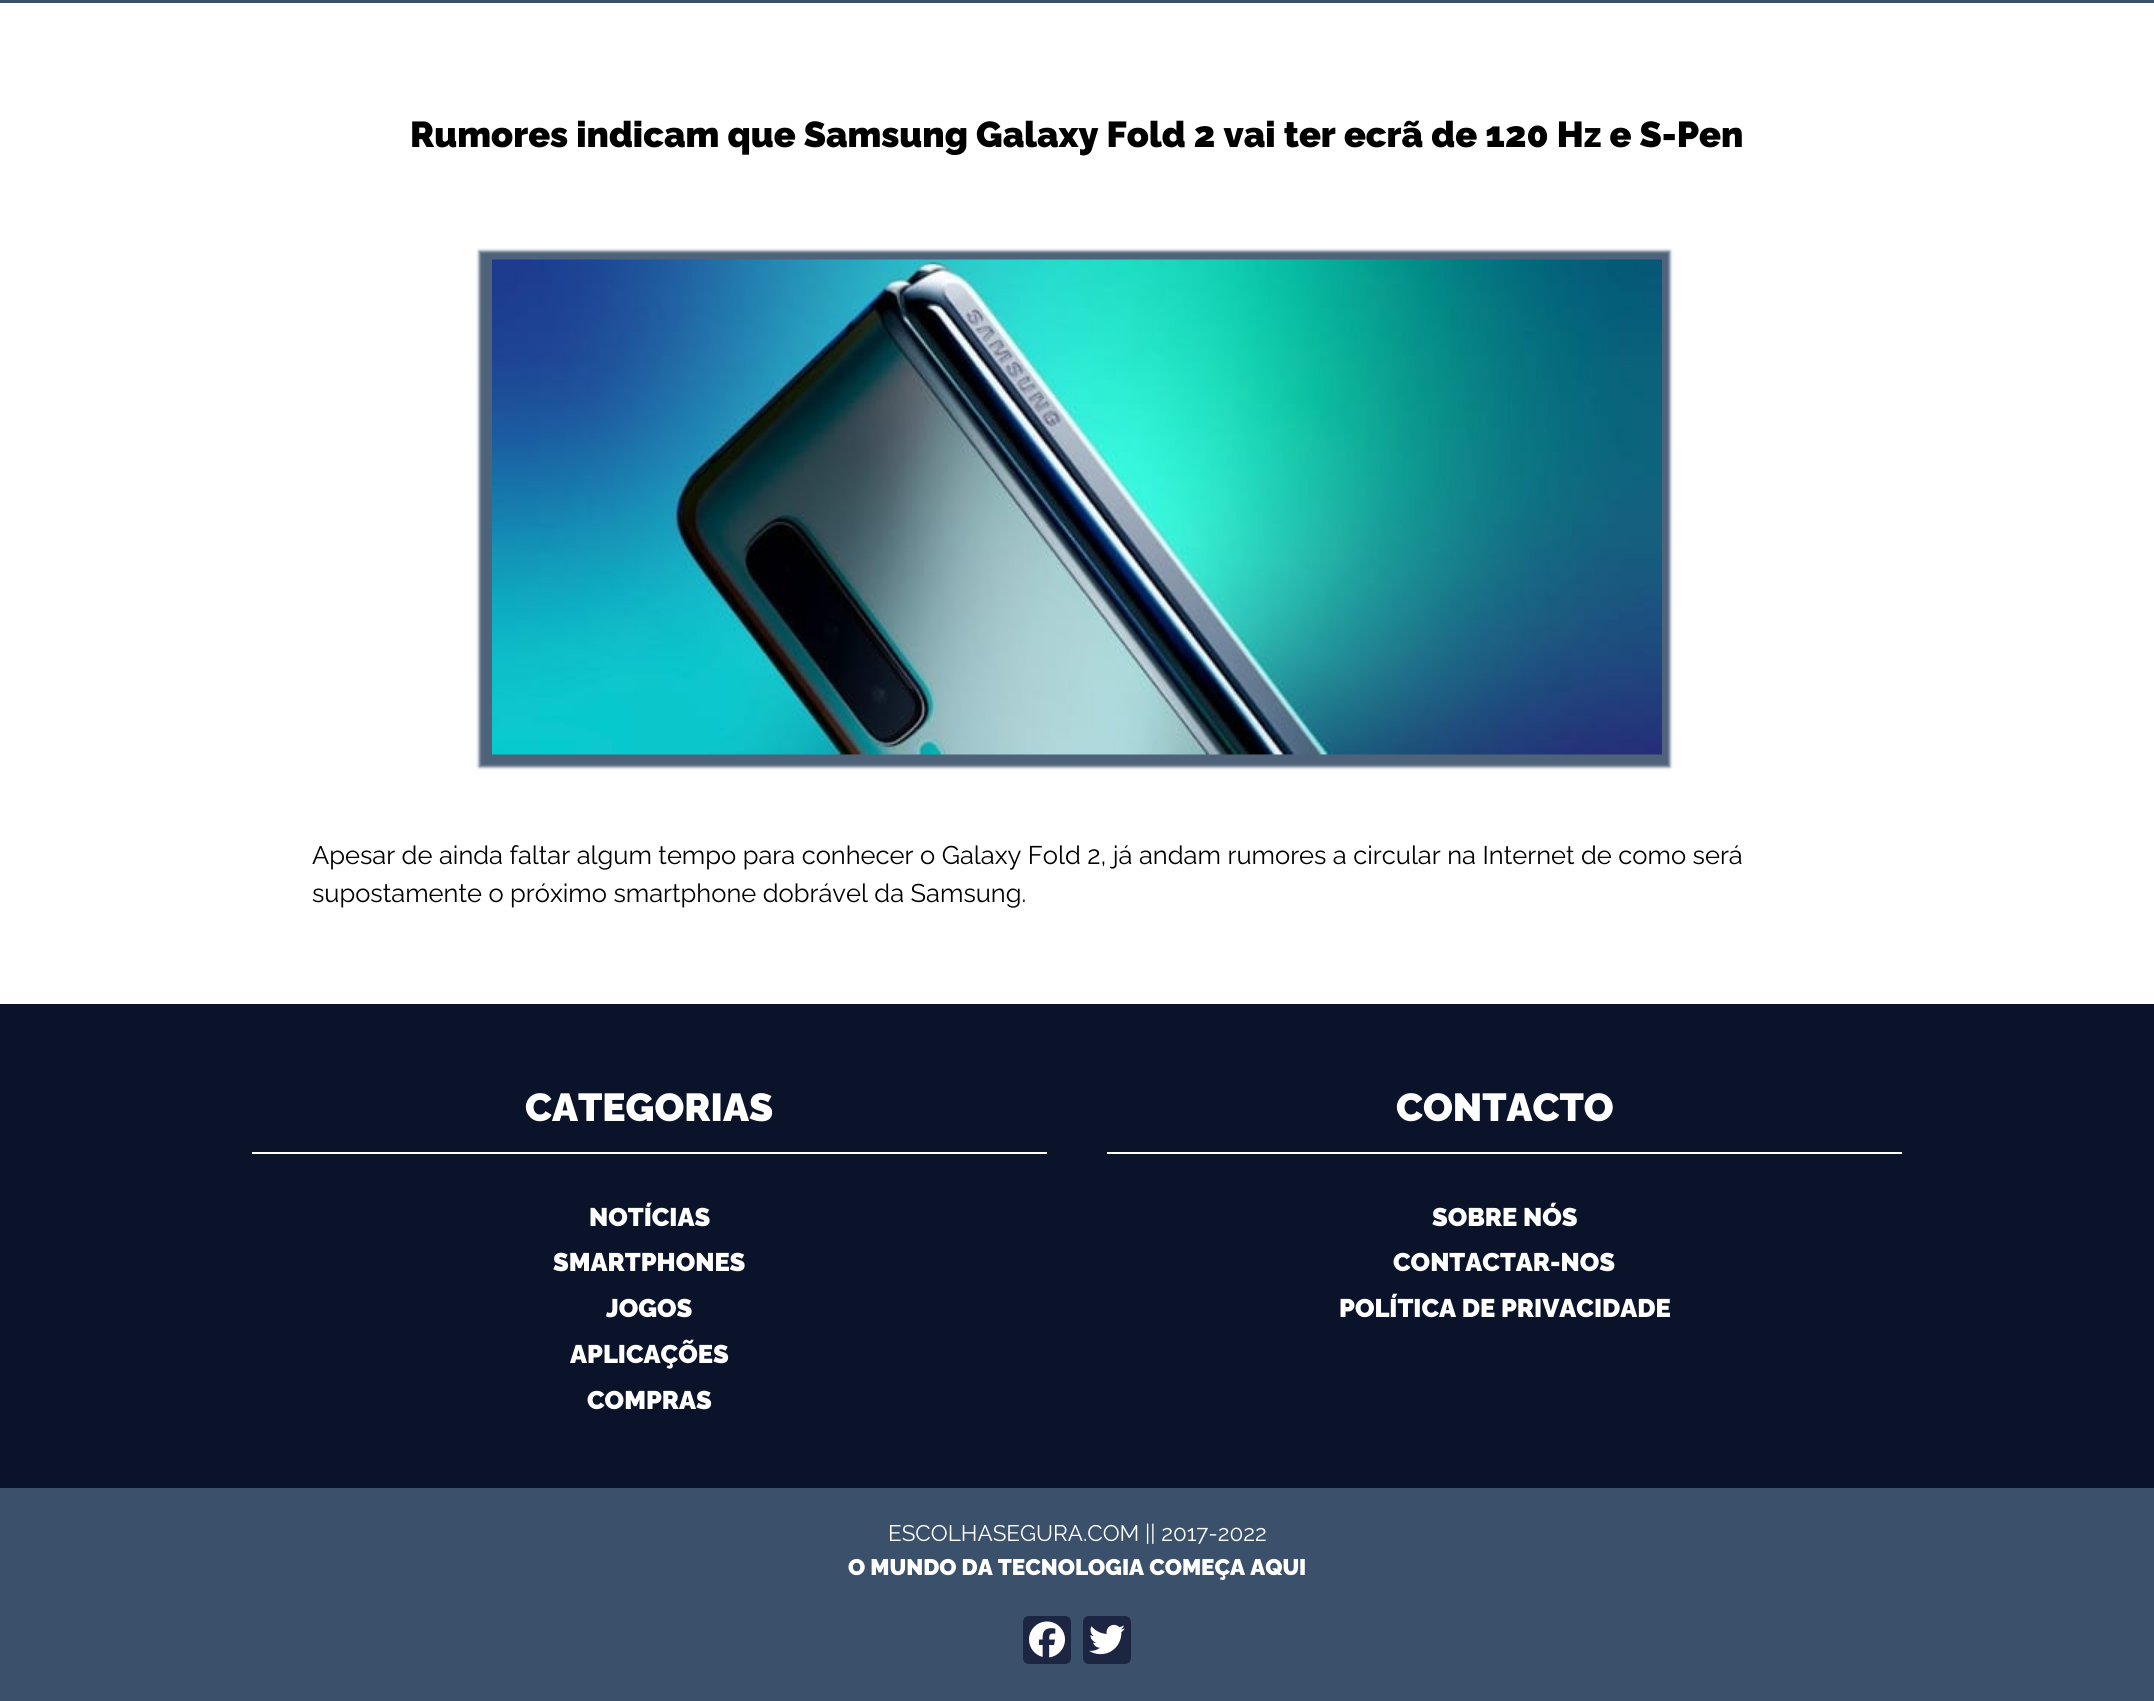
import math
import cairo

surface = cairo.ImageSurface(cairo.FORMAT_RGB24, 2154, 1701)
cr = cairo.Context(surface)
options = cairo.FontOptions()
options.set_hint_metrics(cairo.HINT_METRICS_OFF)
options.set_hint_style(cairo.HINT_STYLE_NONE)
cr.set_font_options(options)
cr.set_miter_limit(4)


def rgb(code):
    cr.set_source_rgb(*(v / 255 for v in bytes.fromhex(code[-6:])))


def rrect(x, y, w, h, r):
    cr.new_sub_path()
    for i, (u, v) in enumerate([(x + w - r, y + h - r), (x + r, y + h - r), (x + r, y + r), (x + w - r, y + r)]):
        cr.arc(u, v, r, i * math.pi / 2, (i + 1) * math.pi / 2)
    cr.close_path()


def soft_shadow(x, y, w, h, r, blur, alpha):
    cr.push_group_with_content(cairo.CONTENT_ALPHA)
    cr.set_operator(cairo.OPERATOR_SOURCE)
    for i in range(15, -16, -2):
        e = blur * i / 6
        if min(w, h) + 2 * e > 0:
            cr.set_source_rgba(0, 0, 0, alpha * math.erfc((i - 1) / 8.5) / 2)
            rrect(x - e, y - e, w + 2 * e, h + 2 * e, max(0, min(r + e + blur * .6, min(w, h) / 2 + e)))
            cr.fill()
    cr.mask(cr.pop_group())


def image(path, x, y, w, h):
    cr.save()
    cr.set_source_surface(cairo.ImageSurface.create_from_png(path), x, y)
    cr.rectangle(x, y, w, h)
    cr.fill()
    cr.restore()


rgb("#ffffff")
cr.paint()
rgb("#3a506b")
cr.rectangle(0, 0, 2154, 3)
cr.fill()
rgb("#3a506b")
soft_shadow(479, 251, 1191, 516, 0, 1.5, 0.9)
image("img/1.png", 492, 259, 1170, 496)
for x, y, w, h, color in [
    (0, 1004, 2154, 484, "#0b132b"),
    (252, 1152, 795, 2, "#ffffff"),
    (1107, 1152, 795, 2, "#ffffff"),
    (0, 1488, 2154, 213, "#3a506b"),
]:
    rgb(color)
    cr.rectangle(x, y, w, h)
    cr.fill()
rgb("#1c2541")
rrect(1023, 1616, 48, 48, 6)
cr.fill()
image("img/2.png", 1029, 1621, 36, 37)
rrect(1083, 1616, 48, 48, 6)
cr.fill()
image("img/3.png", 1089, 1624, 36, 31)
cr.select_font_face("Raleway Black")
cr.set_font_size(36)
rgb("#000000")
cr.move_to(410, 147)
cr.show_text("Rumores indicam que Samsung Galaxy Fold 2 vai ter ecrã de 120 Hz e S-Pen")
cr.select_font_face("Raleway")
cr.set_font_size(25.5)
cr.move_to(312, 864)
cr.show_text("Apesar de ainda faltar algum tempo para conhecer o Galaxy Fold 2, já andam rumores a circular na Internet de como será")
cr.move_to(312, 902)
cr.show_text("supostamente o próximo smartphone dobrável da Samsung.")
cr.select_font_face("Raleway Black")
cr.set_font_size(39)
rgb("#ffffff")
cr.move_to(525, 1121)
cr.show_text("CATEGORIAS")
cr.set_font_size(25.5)
for x, y, s in [
    (589, 1226, "NOTÍCIAS"),
    (553, 1271, "SMARTPHONES"),
    (606, 1317, "JOGOS"),
    (570, 1363, "APLICAÇÕES"),
    (587, 1409, "COMPRAS"),
]:
    cr.move_to(x, y)
    cr.show_text(s)
cr.set_font_size(39)
cr.move_to(1396, 1121)
cr.show_text("CONTACTO")
cr.set_font_size(25.5)
for x, y, s in [
    (1432, 1226, "SOBRE NÓS"),
    (1393, 1271, "CONTACTAR-NOS"),
    (1339, 1317, "POLÍTICA DE PRIVACIDADE"),
]:
    cr.move_to(x, y)
    cr.show_text(s)
cr.select_font_face("Raleway")
cr.set_font_size(22.5)
cr.move_to(888, 1541)
cr.show_text("ESCOLHASEGURA.COM || 2017-2022")
cr.select_font_face("Raleway Black")
cr.move_to(848, 1575)
cr.show_text("O MUNDO DA TECNOLOGIA COMEÇA AQUI")
surface.write_to_png("page.png")
